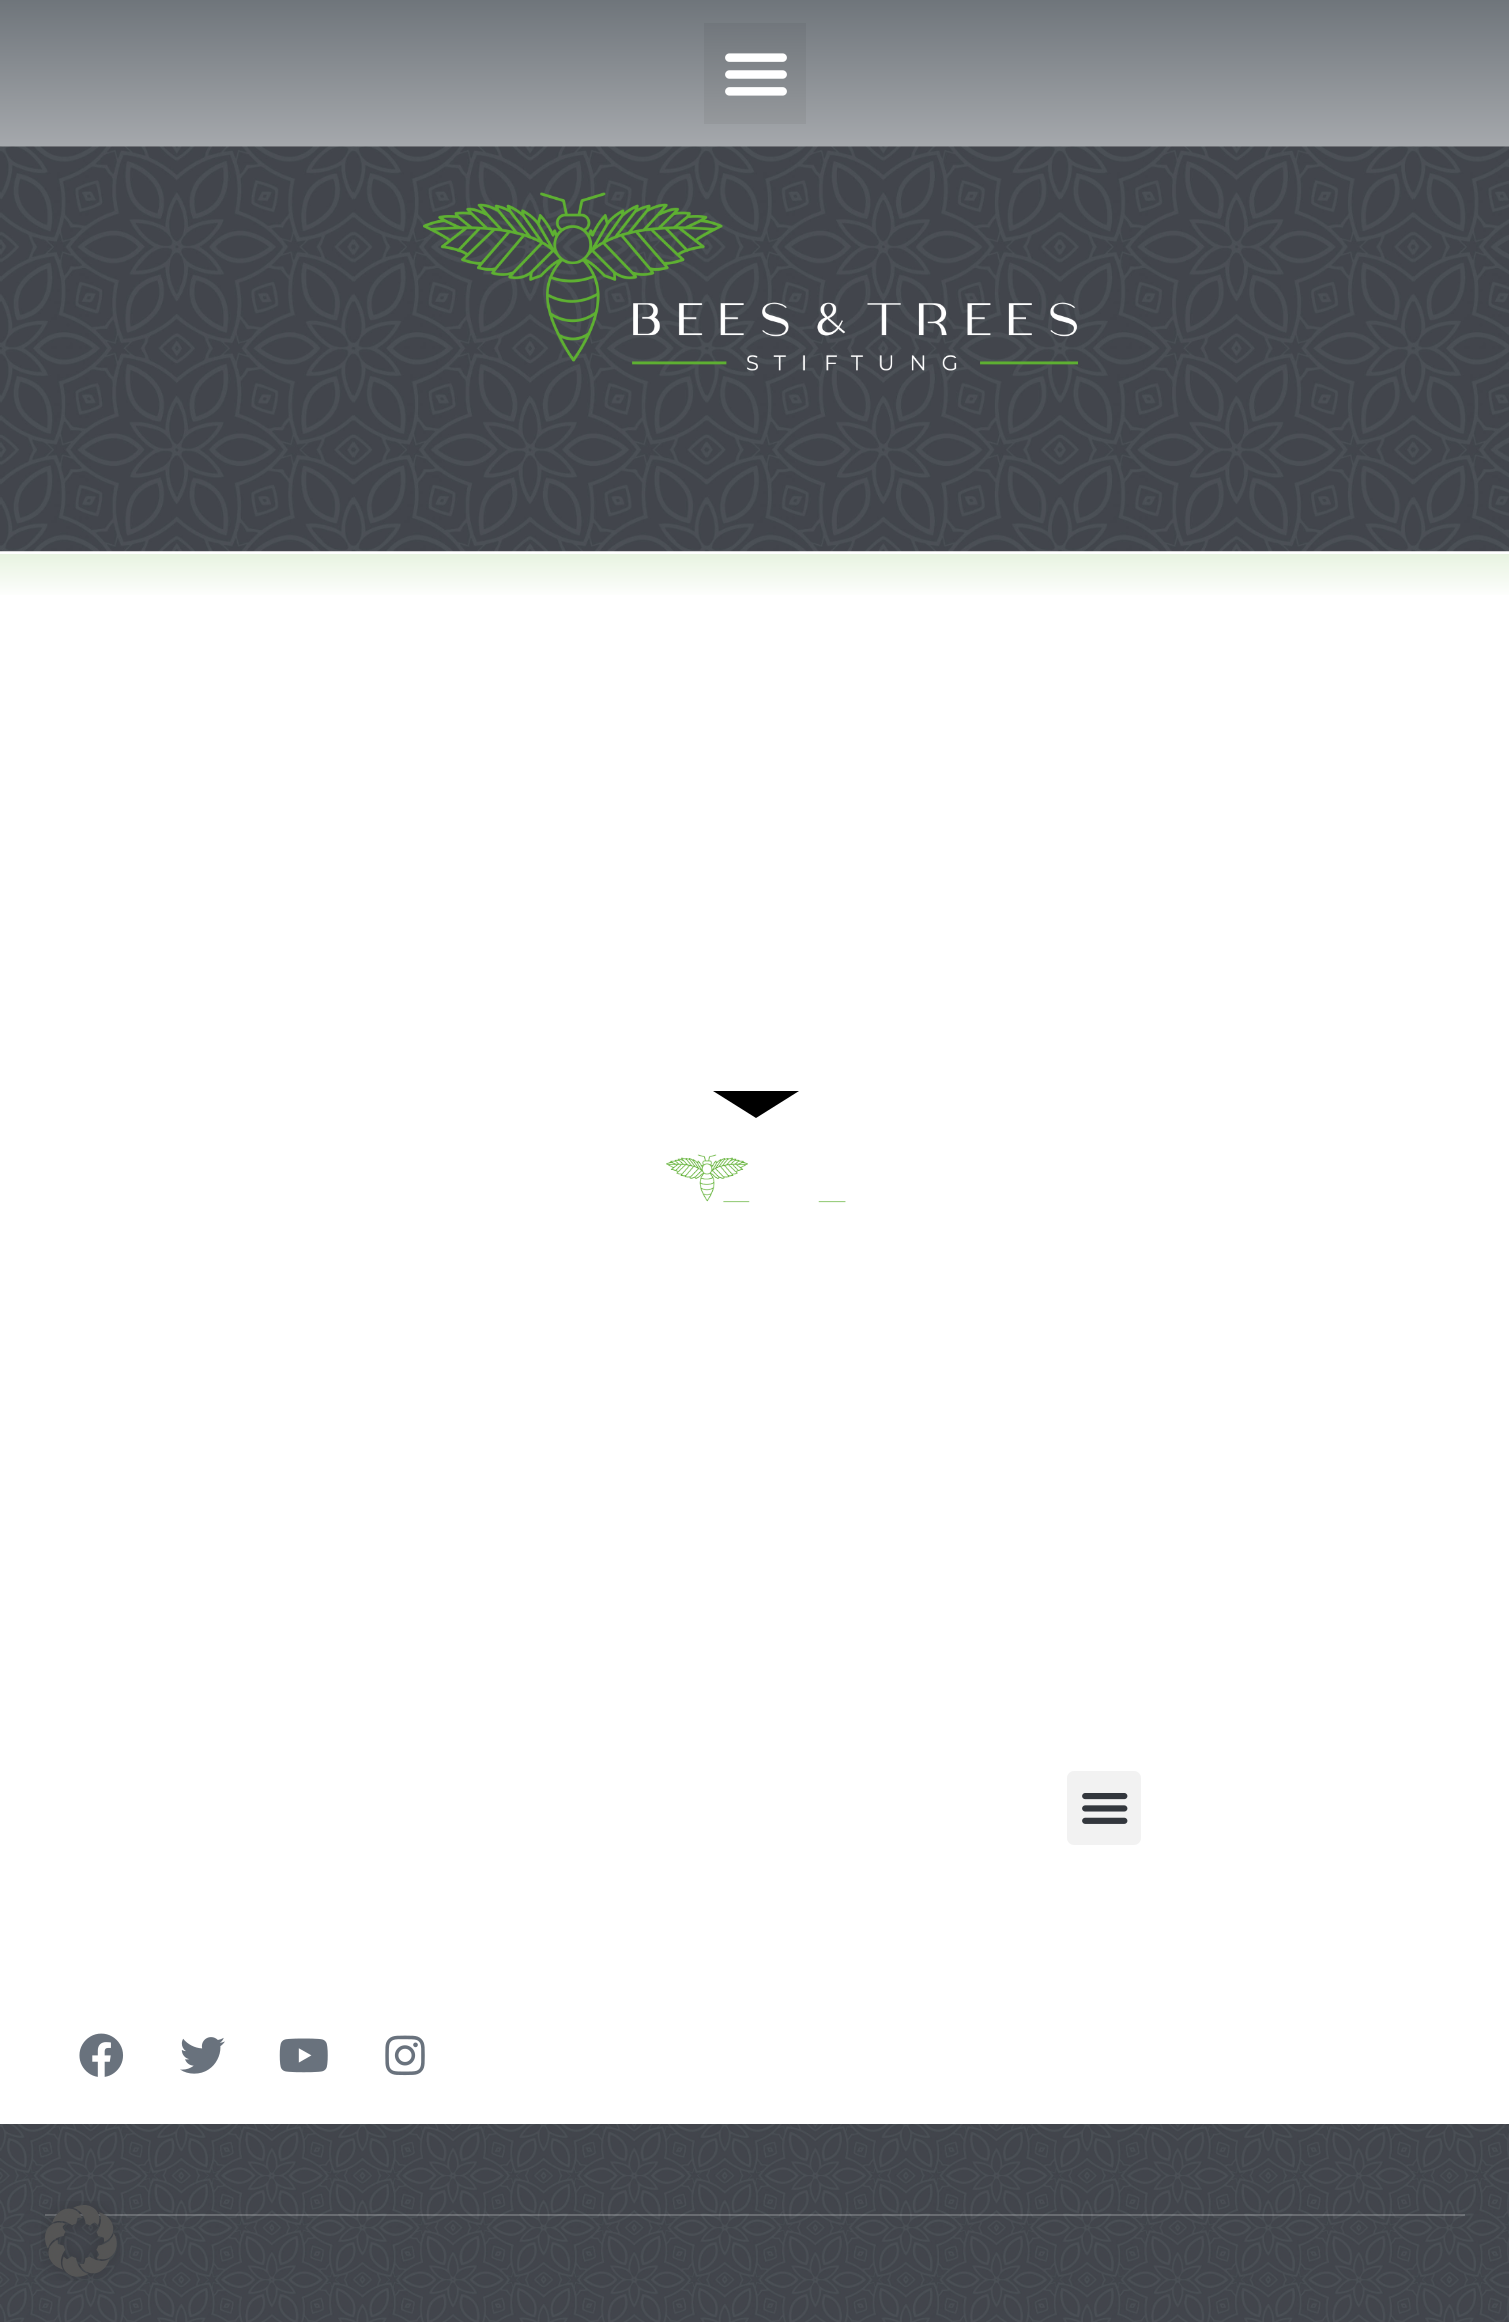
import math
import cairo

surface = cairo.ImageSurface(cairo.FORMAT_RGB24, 1509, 2322)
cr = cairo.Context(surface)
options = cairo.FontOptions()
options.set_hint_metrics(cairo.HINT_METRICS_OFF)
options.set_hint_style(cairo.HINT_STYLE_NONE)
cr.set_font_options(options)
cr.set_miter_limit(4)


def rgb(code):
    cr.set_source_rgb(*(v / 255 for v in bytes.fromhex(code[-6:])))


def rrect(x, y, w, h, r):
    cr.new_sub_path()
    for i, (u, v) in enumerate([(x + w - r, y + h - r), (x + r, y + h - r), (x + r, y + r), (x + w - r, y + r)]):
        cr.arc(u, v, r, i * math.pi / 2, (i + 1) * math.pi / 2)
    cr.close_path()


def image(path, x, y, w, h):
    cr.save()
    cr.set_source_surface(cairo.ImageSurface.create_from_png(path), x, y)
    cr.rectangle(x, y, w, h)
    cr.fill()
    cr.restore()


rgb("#ffffff")
cr.paint()
gradient = cairo.LinearGradient(755, 146, 755, 0)
gradient.add_color_stop_rgba(0, 0.647, 0.659, 0.675, 1)
gradient.add_color_stop_rgba(1, 0.435, 0.459, 0.482, 1)
cr.set_source(gradient)
cr.rectangle(0, 0, 1509, 146)
cr.fill()
gradient = cairo.LinearGradient(755, 146, 755, 0)
gradient.add_color_stop_rgba(0, 0.616, 0.627, 0.639, 1)
gradient.add_color_stop_rgba(1, 0.412, 0.435, 0.459, 1)
cr.set_source(gradient)
cr.rectangle(704, 23, 102, 101)
cr.fill()
image("img/1.png", 725, 53, 62, 43)
image("img/2.png", 0, 146, 1509, 406)
image("img/3.png", 423, 192, 655, 179)
gradient = cairo.LinearGradient(755, 553, 755, 599)
gradient.add_color_stop_rgba(0, 0.906, 0.953, 0.878, 1)
gradient.add_color_stop_rgba(1, 1, 1, 1, 1)
cr.set_source(gradient)
cr.rectangle(0, 554, 1509, 41)
cr.fill()
rgb("#000000")
cr.new_path()
cr.move_to(756, 1118)
cr.line_to(713, 1091)
cr.line_to(799, 1091)
cr.close_path()
cr.fill()
image("img/4.png", 666, 1154, 180, 49)
rgb("#f2f2f2")
rrect(1067, 1771, 74, 74, 7)
cr.fill()
image("img/5.png", 1082, 1793, 46, 31)
image("img/6.png", 79, 2033, 45, 44)
image("img/7.png", 180, 2037, 45, 37)
image("img/8.png", 279, 2038, 49, 35)
image("img/9.png", 385, 2035, 40, 41)
image("img/10.png", 0, 2124, 1509, 198)
cr.set_source_rgba(1, 1, 1, 0.21)
cr.rectangle(45, 2214, 1420, 2)
cr.fill()
image("img/11.png", 41, 2201, 79, 80)
surface.write_to_png("page.png")
